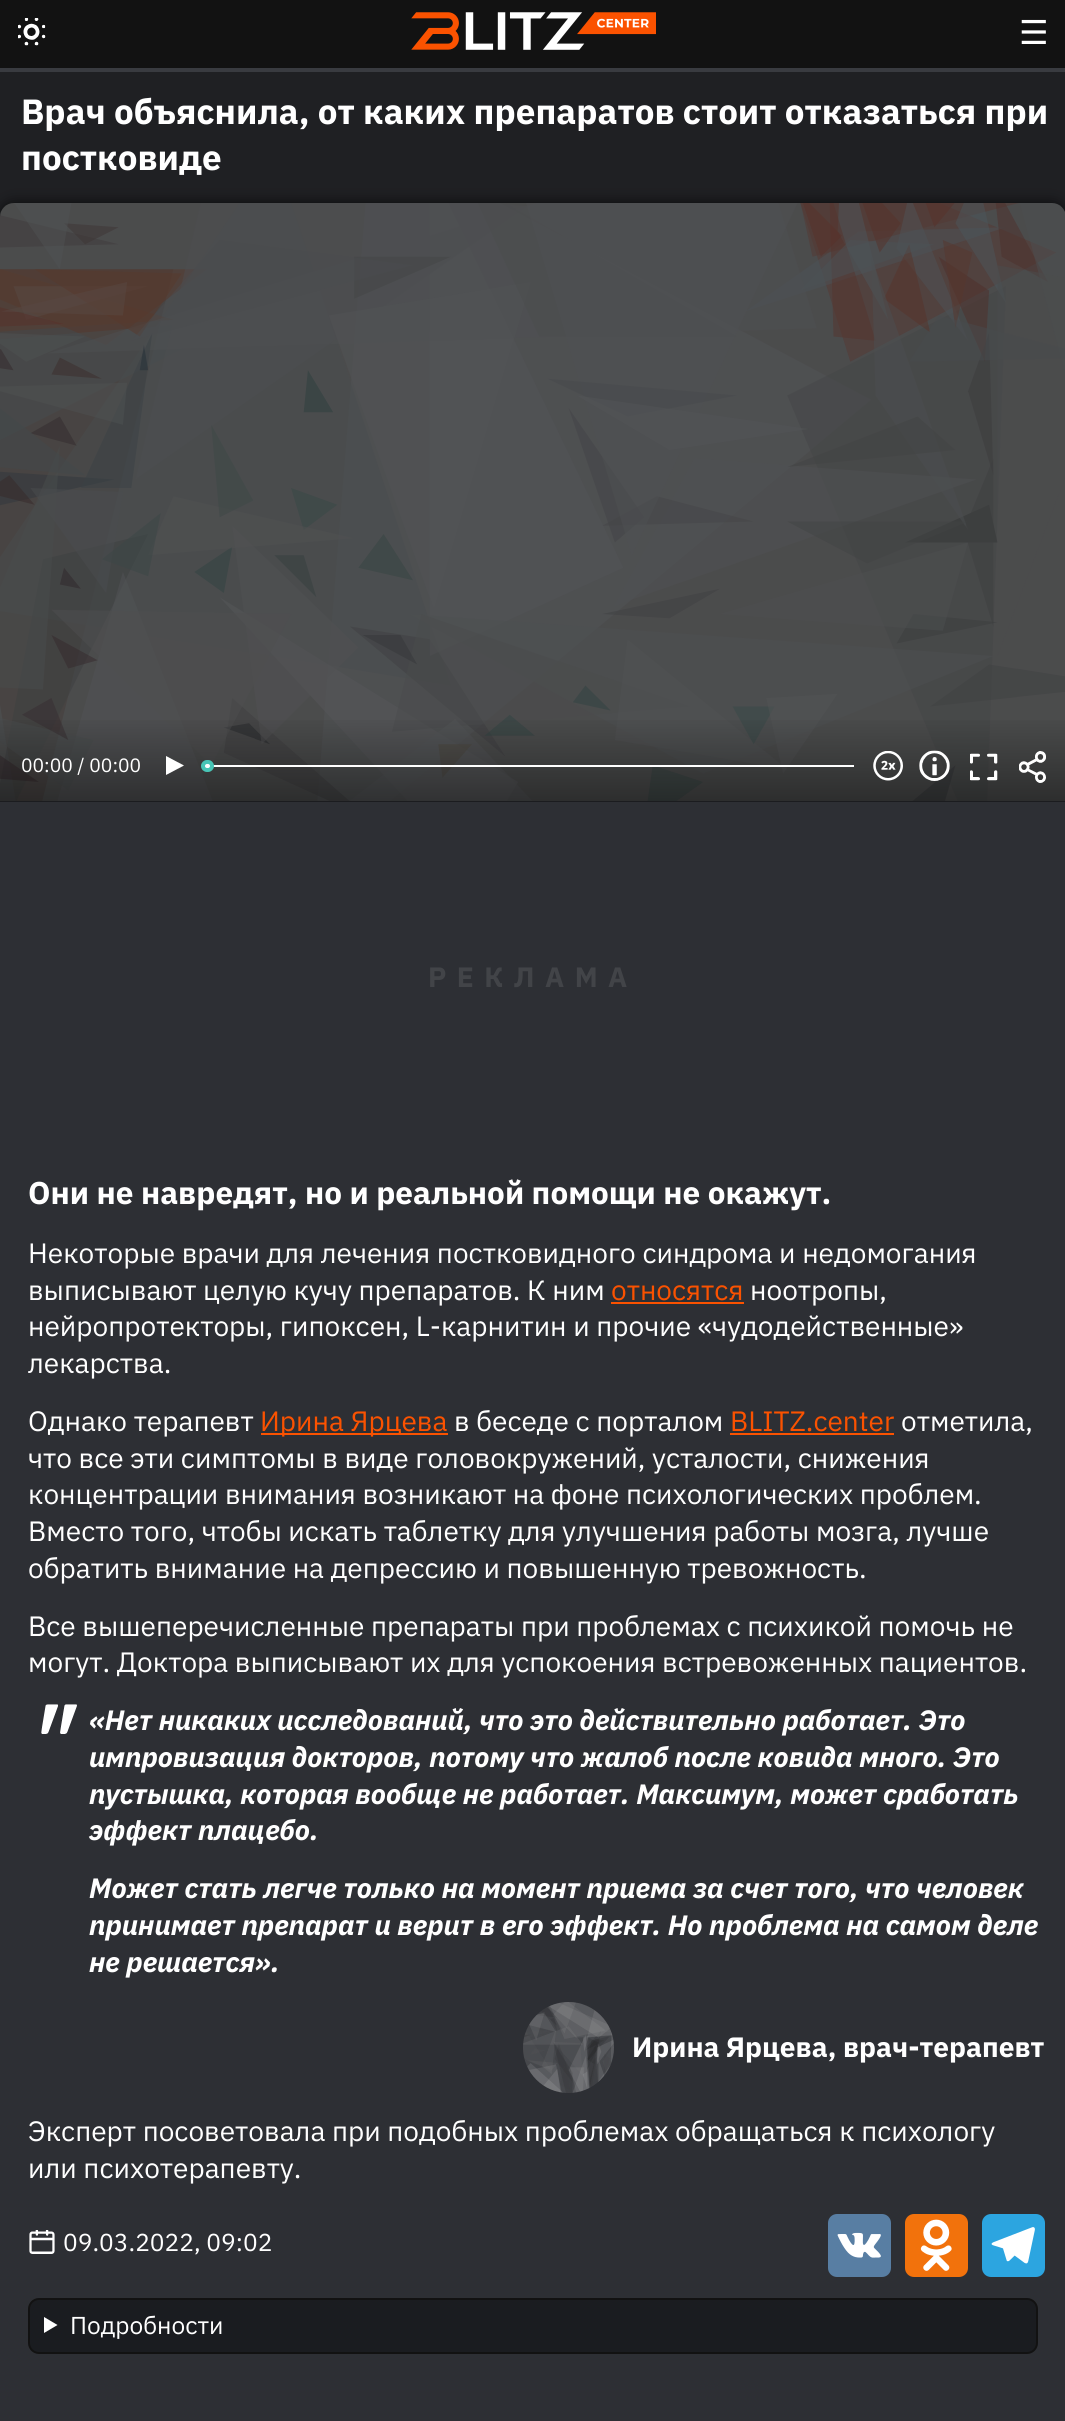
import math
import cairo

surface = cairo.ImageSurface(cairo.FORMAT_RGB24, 1065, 2421)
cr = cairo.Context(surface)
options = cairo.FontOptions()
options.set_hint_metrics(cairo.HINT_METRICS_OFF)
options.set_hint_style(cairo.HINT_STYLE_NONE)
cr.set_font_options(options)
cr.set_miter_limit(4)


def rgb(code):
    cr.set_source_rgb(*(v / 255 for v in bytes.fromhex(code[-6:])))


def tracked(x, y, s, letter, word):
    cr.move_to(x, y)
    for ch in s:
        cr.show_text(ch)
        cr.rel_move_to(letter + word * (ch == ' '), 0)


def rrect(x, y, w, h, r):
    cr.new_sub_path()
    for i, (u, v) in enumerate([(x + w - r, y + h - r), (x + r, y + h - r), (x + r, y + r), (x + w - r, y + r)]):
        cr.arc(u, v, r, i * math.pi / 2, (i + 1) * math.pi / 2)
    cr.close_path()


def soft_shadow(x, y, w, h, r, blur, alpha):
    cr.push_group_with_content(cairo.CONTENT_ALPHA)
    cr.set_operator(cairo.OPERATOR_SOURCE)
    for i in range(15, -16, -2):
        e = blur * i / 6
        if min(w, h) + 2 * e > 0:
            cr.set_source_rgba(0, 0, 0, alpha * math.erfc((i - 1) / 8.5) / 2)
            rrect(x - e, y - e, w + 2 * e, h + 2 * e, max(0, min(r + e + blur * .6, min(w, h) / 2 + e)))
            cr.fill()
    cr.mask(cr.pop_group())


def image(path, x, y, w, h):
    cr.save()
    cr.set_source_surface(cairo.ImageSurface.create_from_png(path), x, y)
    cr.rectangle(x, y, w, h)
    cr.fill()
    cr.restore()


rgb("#121212")
cr.paint()
image("img/1.png", 18, 18, 28, 28)
image("img/2.png", 411, 12, 245, 38)
rgb("#1f2023")
cr.rectangle(0, 72, 1065, 145)
cr.fill()
rgb("#393b40")
cr.rectangle(0, 68, 1065, 4)
cr.fill()
rgb("#000000")
soft_shadow(0, 203, 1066, 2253, 14, 7, 0.7)
rgb("#2d2f34")
rrect(0, 203, 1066, 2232, 14)
cr.fill()
image("img/3.png", 0, 203, 1065, 598)
gradient = cairo.LinearGradient(533, 714, 533, 802)
gradient.add_color_stop_rgba(0, 0, 0, 0, 0)
gradient.add_color_stop_rgba(1, 0, 0, 0, 0.4)
cr.set_source(gradient)
cr.rectangle(0, 720, 1065, 82)
cr.fill()
image("img/4.png", 919, 750, 31, 31)
image("img/5.png", 970, 753, 28, 28)
image("img/6.png", 1019, 751, 27, 32)
rgb("#ffffff")
cr.new_path()
cr.move_to(184, 765.5)
cr.line_to(166, 756)
cr.line_to(166, 775)
cr.close_path()
cr.fill()
cr.rectangle(208, 765, 646, 2)
cr.fill()
rrect(203, 762, 9, 8, 4)
cr.fill_preserve()
rgb("#48c5b6")
cr.set_line_width(4)
cr.stroke()
image("img/7.png", 873, 751, 30, 30)
for x, y, w, h, color in [
    (611, 1302, 133, 2, "#fb5200"),
    (261, 1433, 187, 2, "#fb5200"),
    (730, 1433, 164, 2, "#fb5200"),
]:
    rgb(color)
    cr.rectangle(x, y, w, h)
    cr.fill()
image("img/8.png", 41, 1704, 36, 30)
image("img/9.png", 523, 2002, 91, 91)
image("img/10.png", 29, 2230, 26, 24)
rgb("#587ea3")
rrect(828, 2214, 63, 63, 9)
cr.fill()
image("img/11.png", 837, 2232, 44, 26)
rgb("#f2720c")
rrect(905, 2214, 63, 63, 9)
cr.fill()
image("img/12.png", 920, 2219, 32, 52)
rgb("#2ca5e0")
rrect(982, 2214, 63, 63, 9)
cr.fill()
image("img/13.png", 991, 2227, 44, 37)
rgb("#1a1c20")
rrect(29, 2299, 1008, 54, 10)
cr.fill_preserve()
rgb("#121212")
cr.set_line_width(2)
cr.stroke()
rgb("#ffffff")
cr.new_path()
cr.move_to(44, 2317)
cr.line_to(57.5, 2325)
cr.line_to(44, 2333)
cr.close_path()
cr.fill()
cr.select_font_face("DejaVu Sans")
cr.set_font_size(33)
cr.move_to(1019, 44)
cr.show_text("☰")
cr.select_font_face("IBM Plex Sans", cairo.FONT_SLANT_NORMAL, cairo.FONT_WEIGHT_BOLD)
cr.set_font_size(35)
cr.move_to(21, 124)
cr.show_text("Врач объяснила, от каких препаратов стоит отказаться при")
cr.move_to(21, 170)
cr.show_text("постковиде")
cr.select_font_face("IBM Plex Sans")
cr.set_font_size(19.25)
cr.move_to(21, 772)
cr.show_text("00:00 / 00:00")
cr.select_font_face("IBM Plex Sans", cairo.FONT_SLANT_NORMAL, cairo.FONT_WEIGHT_BOLD)
cr.set_font_size(28)
rgb("#424448")
tracked(428, 987, "РЕКЛАМА", 10.5, 0)
cr.set_font_size(31.5)
rgb("#ffffff")
cr.move_to(28, 1204)
cr.show_text("Они не навредят, но и реальной помощи не окажут.")
cr.select_font_face("IBM Plex Sans")
cr.set_font_size(28)
cr.move_to(28, 1263)
cr.show_text("Некоторые врачи для лечения постковидного синдрома и недомогания")
cr.move_to(28, 1300)
cr.show_text("выписывают целую кучу препаратов. К ним")
rgb("#fb5200")
cr.move_to(611, 1300)
cr.show_text("относятся")
rgb("#ffffff")
for x, y, s in [
    (750, 1300, "ноотропы,"),
    (28, 1336, "нейропротекторы, гипоксен, L-карнитин и прочие «чудодейственные»"),
    (28, 1373, "лекарства."),
    (28, 1431, "Однако терапевт"),
]:
    cr.move_to(x, y)
    cr.show_text(s)
rgb("#fb5200")
cr.move_to(260, 1431)
cr.show_text("Ирина Ярцева")
rgb("#ffffff")
cr.move_to(454, 1431)
cr.show_text("в беседе с порталом")
rgb("#fb5200")
cr.move_to(730, 1431)
cr.show_text("BLITZ.center")
rgb("#ffffff")
for x, y, s in [
    (901, 1431, "отметила,"),
    (28, 1468, "что все эти симптомы в виде головокружений, усталости, снижения"),
    (28, 1504, "концентрации внимания возникают на фоне психологических проблем."),
    (28, 1541, "Вместо того, чтобы искать таблетку для улучшения работы мозга, лучше"),
    (28, 1578, "обратить внимание на депрессию и повышенную тревожность."),
    (28, 1636, "Все вышеперечисленные препараты при проблемах с психикой помочь не"),
    (28, 1672, "могут. Доктора выписывают их для успокоения встревоженных пациентов."),
]:
    cr.move_to(x, y)
    cr.show_text(s)
cr.select_font_face("IBM Plex Sans", cairo.FONT_SLANT_ITALIC, cairo.FONT_WEIGHT_BOLD)
for x, y, s in [
    (89, 1730, "«Нет никаких исследований, что это действительно работает. Это"),
    (89, 1767, "импровизация докторов, потому что жалоб после ковида много. Это"),
    (89, 1804, "пустышка, которая вообще не работает. Максимум, может сработать"),
    (89, 1840, "эффект плацебо."),
    (89, 1898, "Может стать легче только на момент приема за счет того, что человек"),
    (89, 1935, "принимает препарат и верит в его эффект. Но проблема на самом деле"),
    (89, 1972, "не решается»."),
]:
    cr.move_to(x, y)
    cr.show_text(s)
cr.select_font_face("IBM Plex Sans", cairo.FONT_SLANT_NORMAL, cairo.FONT_WEIGHT_BOLD)
cr.move_to(632, 2057)
cr.show_text("Ирина Ярцева, врач-терапевт")
cr.select_font_face("IBM Plex Sans")
cr.move_to(28, 2141)
cr.show_text("Эксперт посоветовала при подобных проблемах обращаться к психологу")
cr.move_to(28, 2178)
cr.show_text("или психотерапевту.")
cr.set_font_size(24.5)
cr.move_to(63, 2251)
cr.show_text("09.03.2022, 09:02")
cr.move_to(70, 2334)
cr.show_text("Подробности")
surface.write_to_png("page.png")
